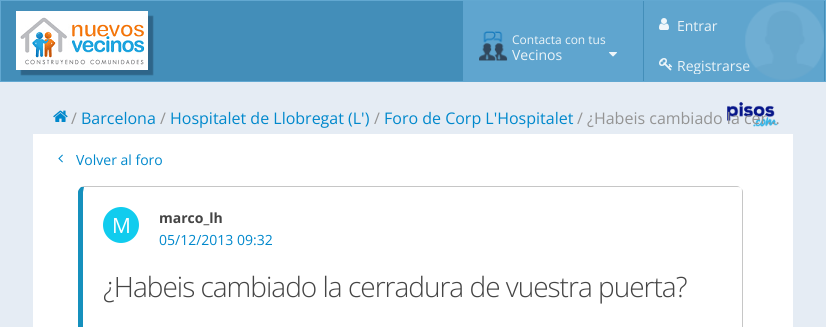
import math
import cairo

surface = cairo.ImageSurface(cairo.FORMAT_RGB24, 826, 327)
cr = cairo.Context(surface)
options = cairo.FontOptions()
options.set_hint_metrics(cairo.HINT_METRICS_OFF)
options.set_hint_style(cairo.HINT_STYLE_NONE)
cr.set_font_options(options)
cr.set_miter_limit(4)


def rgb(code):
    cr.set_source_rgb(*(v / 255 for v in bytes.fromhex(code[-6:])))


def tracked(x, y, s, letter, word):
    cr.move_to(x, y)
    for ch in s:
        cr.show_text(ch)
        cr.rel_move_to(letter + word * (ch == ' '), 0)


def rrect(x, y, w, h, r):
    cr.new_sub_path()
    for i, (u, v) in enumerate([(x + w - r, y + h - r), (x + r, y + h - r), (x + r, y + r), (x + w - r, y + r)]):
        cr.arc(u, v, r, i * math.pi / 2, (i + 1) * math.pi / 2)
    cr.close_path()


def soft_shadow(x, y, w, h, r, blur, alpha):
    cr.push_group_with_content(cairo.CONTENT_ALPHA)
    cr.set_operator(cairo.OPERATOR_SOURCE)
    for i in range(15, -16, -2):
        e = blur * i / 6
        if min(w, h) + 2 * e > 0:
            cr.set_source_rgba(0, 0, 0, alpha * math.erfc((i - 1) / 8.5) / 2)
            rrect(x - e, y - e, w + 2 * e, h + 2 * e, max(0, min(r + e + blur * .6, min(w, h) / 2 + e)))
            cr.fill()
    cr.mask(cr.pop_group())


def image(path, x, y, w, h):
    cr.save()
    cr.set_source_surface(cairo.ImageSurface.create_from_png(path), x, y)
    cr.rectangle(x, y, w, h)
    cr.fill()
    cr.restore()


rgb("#e5ecf4")
cr.paint()
rgb("#438eb9")
cr.rectangle(0.5, 0.5, 825, 81)
cr.fill_preserve()
rgb("#62a8d1")
cr.set_line_width(1)
cr.stroke()
rgb("#ffffff")
cr.rectangle(16, 11, 132, 2)
cr.fill()
rgb("#2e6589")
soft_shadow(21, 16, 132, 59, 0, 0.5, 1)
for x, y, w, h, color in [
    (147, 11, 1, 59, "#ffffff"),
    (16, 68, 132, 2, "#ffffff"),
    (16, 11, 2, 59, "#ffffff"),
]:
    rgb(color)
    cr.rectangle(x, y, w, h)
    cr.fill()
image("img/1.png", 18, 13, 129, 55)
rgb("#5fa5cf")
cr.rectangle(463, 1, 180, 80)
cr.fill()
image("img/2.png", 479, 31, 29, 30)
image("img/3.png", 609, 52, 8, 5)
image("img/4.png", 745, 2, 79, 78)
cr.set_source_rgba(0.384, 0.659, 0.82, 0.9)
cr.rectangle(644, 1, 180, 40)
cr.fill()
image("img/5.png", 659, 18, 10, 12)
cr.rectangle(644, 41, 180, 40)
cr.fill()
image("img/6.png", 659, 58, 14, 13)
image("img/7.png", 727, 102, 51, 25)
image("img/8.png", 53, 110, 15, 12)
gradient = cairo.LinearGradient(413, 134, 413, 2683)
gradient.add_color_stop_rgba(0.01, 1, 1, 1, 1)
gradient.add_color_stop_rgba(0.98, 0.976, 0.976, 0.976, 1)
cr.set_source(gradient)
cr.rectangle(33, 134, 760, 193)
cr.fill()
image("img/9.png", 58, 154, 5, 9)
rgb("#c6c6c6")
cr.new_path()
cr.move_to(84, 186)
cr.line_to(81, 187)
cr.line_to(84, 187)
cr.line_to(737, 187)
cr.curve_to(738, 187, 740, 187, 741, 188)
cr.curve_to(740, 187, 738, 186, 737, 186)
cr.close_path()
cr.fill()
cr.new_path()
cr.move_to(743, 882)
cr.line_to(743, 192)
cr.curve_to(743, 190, 742, 189, 741, 188)
cr.curve_to(742, 189, 742, 190, 742, 192)
cr.line_to(742, 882)
cr.curve_to(742, 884, 742, 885, 741, 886)
cr.curve_to(742, 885, 743, 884, 743, 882)
cr.close_path()
cr.fill()
rgb("#1590bd")
cr.new_path()
cr.move_to(78, 192)
cr.line_to(78, 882)
cr.curve_to(78, 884, 80, 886, 81, 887)
cr.line_to(84, 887)
cr.line_to(83, 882)
cr.line_to(83, 192)
cr.line_to(84, 187)
cr.line_to(81, 187)
cr.curve_to(80, 188, 78, 190, 78, 192)
cr.close_path()
cr.fill()
rgb("#11ccee")
cr.arc(121, 225, 18, 0, 2 * math.pi)
cr.fill()
cr.select_font_face("Open Sans")
cr.set_font_size(12)
rgb("#ecf4f8")
cr.move_to(512, 44)
cr.show_text("Contacta con tus")
cr.set_font_size(14)
cr.move_to(512, 60)
cr.show_text("Vecinos")
cr.move_to(677, 31)
cr.show_text("Entrar")
cr.save()
cr.rectangle(659, 56, 91, 18)
cr.clip()
cr.move_to(677, 71)
cr.show_text("Registrarse")
cr.restore()
cr.set_font_size(16)
rgb("#949494")
cr.move_to(71, 124)
cr.show_text("/")
rgb("#0088cc")
cr.move_to(81, 124)
cr.show_text("Barcelona")
rgb("#949494")
cr.move_to(160, 124)
cr.show_text("/")
rgb("#0088cc")
cr.move_to(170, 124)
cr.show_text("Hospitalet de Llobregat (L')")
rgb("#949494")
cr.move_to(374, 124)
cr.show_text("/")
rgb("#0088cc")
cr.move_to(384, 124)
cr.show_text("Foro de Corp L'Hospitalet")
rgb("#949494")
cr.move_to(577, 124)
cr.show_text("/ ¿Habeis cambiado la cer…")
cr.set_font_size(14)
rgb("#0088cc")
cr.move_to(76, 165)
cr.show_text("Volver al foro")
cr.set_font_size(21)
rgb("#ffffff")
cr.move_to(112, 233)
cr.show_text("M")
cr.select_font_face("Open Sans", cairo.FONT_SLANT_NORMAL, cairo.FONT_WEIGHT_BOLD)
cr.set_font_size(14)
rgb("#444444")
cr.move_to(159, 223)
cr.show_text("marco_lh")
cr.select_font_face("Open Sans")
rgb("#0088cc")
cr.move_to(159, 245)
cr.show_text("05/12/2013 09:32")
cr.select_font_face("Open Sans Light")
cr.set_font_size(28)
rgb("#444444")
tracked(103, 297, "¿Habeis cambiado la cerradura de vuestra puerta?", -1, 0)
surface.write_to_png("page.png")
